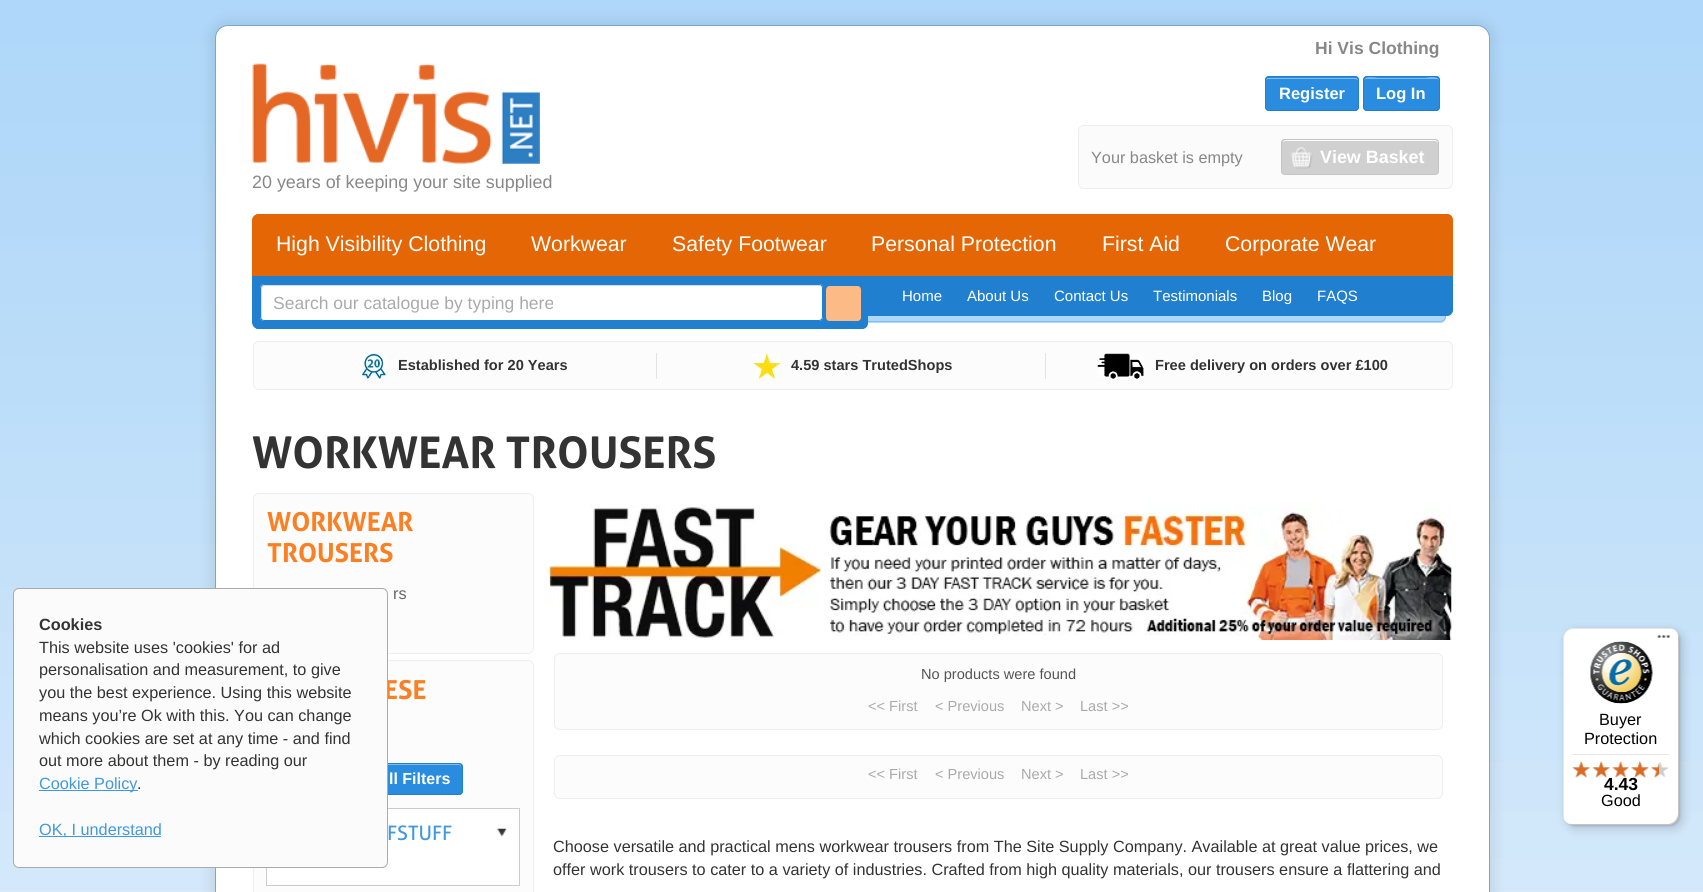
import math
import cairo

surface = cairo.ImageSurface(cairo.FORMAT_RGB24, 1703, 892)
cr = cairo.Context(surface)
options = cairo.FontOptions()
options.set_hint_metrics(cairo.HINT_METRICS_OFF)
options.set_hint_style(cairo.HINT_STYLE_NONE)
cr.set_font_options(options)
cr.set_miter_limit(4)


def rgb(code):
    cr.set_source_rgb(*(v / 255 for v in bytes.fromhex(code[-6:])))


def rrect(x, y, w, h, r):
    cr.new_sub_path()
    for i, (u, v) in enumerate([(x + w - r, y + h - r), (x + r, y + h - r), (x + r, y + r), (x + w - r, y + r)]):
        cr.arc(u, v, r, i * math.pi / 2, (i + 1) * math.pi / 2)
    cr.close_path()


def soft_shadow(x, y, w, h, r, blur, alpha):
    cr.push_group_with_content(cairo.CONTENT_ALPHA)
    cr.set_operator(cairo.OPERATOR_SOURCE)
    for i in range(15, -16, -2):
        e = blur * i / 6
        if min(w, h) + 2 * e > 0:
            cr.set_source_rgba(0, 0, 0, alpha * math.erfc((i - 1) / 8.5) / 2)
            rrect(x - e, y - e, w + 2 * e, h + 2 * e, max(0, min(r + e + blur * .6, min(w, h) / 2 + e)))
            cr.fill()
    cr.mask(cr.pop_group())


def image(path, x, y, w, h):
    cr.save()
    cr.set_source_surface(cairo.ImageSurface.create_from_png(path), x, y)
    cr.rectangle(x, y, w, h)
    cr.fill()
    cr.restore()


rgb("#d8eafa")
cr.paint()
image("img/1.png", 0, 0, 1703, 891)
rgb("#000000")
soft_shadow(209, 19, 1287, 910, 19, 6, 0.07)
rgb("#ffffff")
rrect(215.5, 25.5, 1274, 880, 12.5)
cr.fill_preserve()
rgb("#77a7cf")
cr.set_line_width(1)
cr.stroke()
rgb("#2a8cde")
rrect(1265, 76, 94, 35, 4)
cr.fill()
rgb("#82bceb")
cr.new_path()
cr.move_to(1269, 79)
cr.line_to(1355, 79)
cr.curve_to(1356, 79, 1358, 80, 1358, 81)
cr.curve_to(1358, 80, 1357, 78, 1356, 78)
cr.line_to(1268, 78)
cr.curve_to(1267, 78, 1266, 80, 1266, 81)
cr.curve_to(1266, 80, 1267, 79, 1269, 79)
cr.close_path()
cr.fill()
rrect(1265.5, 76.5, 93, 34, 3.5)
rgb("#207fce")
cr.stroke()
rgb("#2a8cde")
rrect(1363, 76, 77, 35, 4)
cr.fill()
rgb("#82bceb")
cr.new_path()
cr.move_to(1366, 79)
cr.line_to(1436, 79)
cr.curve_to(1438, 79, 1439, 80, 1439, 81)
cr.curve_to(1439, 75, 1426, 78, 1425, 78)
cr.line_to(1378, 78)
cr.curve_to(1377, 78, 1364, 75, 1364, 81)
cr.curve_to(1364, 80, 1365, 79, 1366, 79)
cr.close_path()
cr.fill()
rrect(1363.5, 76.5, 76, 34, 3.5)
rgb("#207fce")
cr.stroke()
rgb("#fbfbfb")
rrect(1078.5, 125.5, 374, 63, 5.5)
cr.fill_preserve()
rgb("#eeeeee")
cr.stroke()
rgb("#d0d0d0")
rrect(1281, 139, 158, 36, 4)
cr.fill()
rgb("#ffffff")
cr.new_path()
cr.move_to(1285, 141)
cr.line_to(1435, 141)
cr.curve_to(1436, 141, 1438, 142, 1438, 144)
cr.line_to(1438, 142)
cr.curve_to(1438, 141, 1437, 140, 1436, 140)
cr.line_to(1286, 140)
cr.curve_to(1284, 140, 1283, 141, 1283, 142)
cr.close_path()
cr.fill()
rrect(1281.5, 139.5, 157, 35, 3.5)
rgb("#c4c4c4")
cr.stroke()
image("img/2.png", 1291, 147, 22, 22)
rgb("#fcfcfc")
rrect(253.5, 493.5, 280, 160, 5.5)
cr.fill_preserve()
rgb("#eeeeee")
cr.stroke()
rgb("#fcfcfc")
rrect(253.5, 660.5, 280, 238, 5.5)
cr.fill_preserve()
rgb("#eeeeee")
cr.stroke()
rgb("#2a8cde")
rrect(323, 763, 140, 32, 4)
cr.fill()
rgb("#82bceb")
cr.new_path()
cr.move_to(326, 765)
cr.line_to(459, 765)
cr.curve_to(460, 765, 461, 766, 461, 768)
cr.line_to(461, 766)
cr.curve_to(461, 765, 460, 764, 458, 764)
cr.line_to(326, 764)
cr.curve_to(325, 764, 324, 765, 324, 766)
cr.line_to(324, 768)
cr.curve_to(324, 766, 325, 765, 326, 765)
cr.close_path()
cr.fill()
rrect(323.5, 763.5, 139, 31, 3.5)
rgb("#207fce")
cr.stroke()
rgb("#ffffff")
cr.rectangle(267, 809, 252, 76)
cr.fill()
image("img/3.png", 497, 828, 10, 9)
cr.rectangle(266.5, 808.5, 253, 77)
rgb("#cccccc")
cr.stroke()
image("img/4.png", 545, 505, 907, 135)
rgb("#fcfcfc")
rrect(554.5, 653.5, 888, 76, 5.5)
cr.fill_preserve()
rgb("#eeeeee")
cr.stroke()
rgb("#fcfcfc")
rrect(554.5, 755.5, 888, 43, 5.5)
cr.fill_preserve()
rgb("#eeeeee")
cr.stroke()
image("img/5.png", 252, 63, 288, 101)
rgb("#e56605")
cr.new_path()
cr.move_to(259, 214)
cr.line_to(1447, 214)
cr.curve_to(1450.5, 214, 1453, 216.5, 1453, 220)
cr.line_to(1453, 276)
cr.line_to(253, 276)
cr.line_to(253, 220)
cr.curve_to(253, 216.5, 255.5, 214, 259, 214)
cr.close_path()
cr.fill()
cr.set_fill_rule(cairo.FILL_RULE_EVEN_ODD)
cr.new_path()
cr.move_to(259, 214)
cr.line_to(1446, 214)
cr.curve_to(1450, 214, 1452, 217, 1452, 220)
cr.line_to(1452, 276)
cr.line_to(252, 276)
cr.line_to(252, 220)
cr.curve_to(252, 217, 255, 214, 259, 214)
cr.close_path()
cr.move_to(259, 215)
cr.line_to(1446, 215)
cr.curve_to(1449, 215, 1451, 217, 1451, 220)
cr.line_to(1451, 276)
cr.line_to(254, 276)
cr.line_to(254, 220)
cr.curve_to(254, 217, 256, 215, 259, 215)
cr.close_path()
cr.fill()
rgb("#207fce")
cr.new_path()
cr.move_to(253.5, 276.5)
cr.line_to(1452.5, 276.5)
cr.line_to(1452.5, 310)
cr.curve_to(1452.5, 313, 1450, 315.5, 1447, 315.5)
cr.line_to(259, 315.5)
cr.curve_to(256, 315.5, 253.5, 313, 253.5, 310)
cr.close_path()
cr.fill_preserve()
cr.stroke()
rgb("#afd7f9")
cr.new_path()
cr.move_to(253, 316)
cr.line_to(1446, 316)
cr.line_to(1446, 317)
cr.curve_to(1446, 320.5, 1443.5, 323, 1440, 323)
cr.line_to(253, 323)
cr.close_path()
cr.fill()
rgb("#80bff5")
cr.new_path()
cr.move_to(252, 316)
cr.line_to(1446, 316)
cr.curve_to(1446, 320, 1443, 322, 1440, 322)
cr.line_to(252, 322)
cr.close_path()
cr.move_to(252, 316)
cr.line_to(1445, 316)
cr.curve_to(1445, 319, 1443, 321, 1440, 321)
cr.line_to(252, 321)
cr.close_path()
cr.fill()
rgb("#207fce")
cr.new_path()
cr.move_to(253, 276)
cr.line_to(868, 276)
cr.line_to(868, 323)
cr.curve_to(868, 326.5, 865.5, 329, 862, 329)
cr.line_to(259, 329)
cr.curve_to(255.5, 329, 253, 326.5, 253, 323)
cr.close_path()
cr.fill()
cr.new_path()
cr.move_to(252, 276)
cr.line_to(868, 276)
cr.line_to(868, 322)
cr.curve_to(868, 326, 865, 329, 861, 329)
cr.line_to(259, 329)
cr.curve_to(255, 329, 252, 326, 252, 322)
cr.close_path()
cr.move_to(254, 278)
cr.line_to(868, 278)
cr.line_to(868, 322)
cr.curve_to(868, 325, 865, 328, 861, 328)
cr.line_to(259, 328)
cr.curve_to(256, 328, 254, 325, 254, 322)
cr.close_path()
cr.fill()
rgb("#ffffff")
rrect(260, 284, 563, 37, 4)
cr.fill()
rgb("#d9d9d9")
cr.set_fill_rule(cairo.FILL_RULE_WINDING)
cr.new_path()
cr.move_to(265, 286)
cr.line_to(821, 286)
cr.curve_to(820, 285, 819, 285, 818, 285)
cr.line_to(264, 285)
cr.curve_to(262, 285, 261, 286, 261, 288)
cr.line_to(261, 318)
cr.curve_to(261, 318, 262, 319, 262, 320)
cr.line_to(262, 294)
cr.curve_to(262, 292, 261, 286, 265, 286)
cr.close_path()
cr.fill()
rrect(260.5, 284.5, 562, 36, 3.5)
rgb("#207fce")
cr.stroke()
rgb("#fa8023")
rrect(826, 286, 35, 35, 4)
cr.fill()
rgb("#fcba87")
cr.new_path()
cr.move_to(830, 286)
cr.curve_to(825.5, 286, 826, 291.5, 826, 294.5)
cr.line_to(826, 312.5)
cr.curve_to(826, 321.5, 826.5, 321, 834.5, 321)
cr.line_to(852.5, 321)
cr.curve_to(855.5, 321, 860, 322, 861, 318)
cr.line_to(861, 294.5)
cr.curve_to(861, 291.5, 862, 286, 857, 286)
cr.close_path()
cr.fill()
rgb("#fcfcfc")
rrect(253.5, 341.5, 1199, 48, 5.5)
cr.fill_preserve()
rgb("#eeeeee")
cr.stroke()
rgb("#e3e3e3")
cr.rectangle(656, 353, 1, 26)
cr.fill()
image("img/6.png", 361, 353, 26, 26)
cr.rectangle(1045, 353, 1, 26)
cr.fill()
image("img/7.png", 753, 353, 27, 26)
image("img/8.png", 1097, 353, 47, 26)
rgb("#000000")
soft_shadow(1566, 631, 117, 198, 10, 5, 0.15)
soft_shadow(1564, 629, 116, 197, 10, 1, 0.15)
rgb("#ffffff")
rrect(1563, 628, 116, 197, 10)
cr.fill()
cr.set_source_rgba(0, 0, 0, 0.1)
cr.new_path()
cr.move_to(1574, 629)
cr.line_to(1670, 629)
cr.curve_to(1672, 629, 1674, 629, 1675, 630)
cr.curve_to(1674, 629, 1671, 628, 1669, 628)
cr.line_to(1573, 628)
cr.curve_to(1567, 628, 1563, 632, 1563, 638)
cr.line_to(1563, 815)
cr.curve_to(1563, 817, 1564, 820, 1565, 821)
cr.curve_to(1564, 820, 1564, 818, 1564, 816)
cr.line_to(1564, 639)
cr.curve_to(1564, 633, 1568, 629, 1574, 629)
cr.close_path()
cr.fill()
cr.set_source_rgba(0, 0, 0, 0.2)
cr.new_path()
cr.move_to(1567, 823)
cr.curve_to(1569, 824, 1571, 825, 1573, 825)
cr.line_to(1669, 825)
cr.curve_to(1675, 825, 1679, 821, 1679, 815)
cr.line_to(1679, 638)
cr.curve_to(1679, 636, 1678, 634, 1677, 632)
cr.curve_to(1678, 633, 1678, 635, 1678, 636)
cr.line_to(1678, 814)
cr.curve_to(1678, 819, 1673, 824, 1668, 824)
cr.line_to(1571, 824)
cr.curve_to(1570, 824, 1568, 824, 1567, 823)
cr.close_path()
cr.fill()
cr.set_source_rgba(0.196, 0.196, 0.196, 0.2)
cr.new_path()
cr.move_to(1567, 823)
cr.curve_to(1568, 824, 1571, 825, 1573, 825)
cr.line_to(1669, 825)
cr.curve_to(1675, 825, 1679, 821, 1679, 815)
cr.line_to(1679, 638)
cr.curve_to(1679, 636, 1678, 633, 1677, 632)
cr.curve_to(1678, 633, 1678, 635, 1678, 637)
cr.line_to(1678, 814)
cr.curve_to(1678, 820, 1674, 824, 1668, 824)
cr.line_to(1572, 824)
cr.curve_to(1570, 824, 1568, 824, 1567, 823)
cr.close_path()
cr.fill()
cr.set_source_rgba(1, 1, 1, 0.3)
cr.new_path()
cr.move_to(1567, 823)
cr.curve_to(1568, 824, 1571, 825, 1573, 825)
cr.line_to(1669, 825)
cr.curve_to(1675, 825, 1679, 821, 1679, 815)
cr.line_to(1679, 638)
cr.curve_to(1679, 636, 1678, 633, 1677, 632)
cr.curve_to(1678, 633, 1678, 635, 1678, 637)
cr.line_to(1678, 814)
cr.curve_to(1678, 820, 1674, 824, 1668, 824)
cr.line_to(1572, 824)
cr.curve_to(1570, 824, 1568, 824, 1567, 823)
cr.close_path()
cr.fill()
image("img/9.png", 1657, 635, 13, 3)
image("img/10.png", 1590, 641, 63, 63)
rgb("#e5e5e5")
cr.rectangle(1573, 754, 96, 1)
cr.fill()
image("img/11.png", 1572, 762, 18, 15)
image("img/13.png", 1612, 762, 17, 15)
image("img/15.png", 1651, 762, 18, 15)
image("img/16.png", 1572, 761, 18, 17)
image("img/20.png", 1651, 763, 8, 15)
cr.select_font_face("Liberation Sans", cairo.FONT_SLANT_NORMAL, cairo.FONT_WEIGHT_BOLD)
cr.set_font_size(17.5)
rgb("#888888")
cr.move_to(1315, 54)
cr.show_text("Hi Vis Clothing")
cr.set_font_size(16.5)
rgb("#ffffff")
cr.move_to(1279, 99)
cr.show_text("Register")
cr.move_to(1376, 99)
cr.show_text("Log In")
cr.select_font_face("Liberation Sans")
cr.set_font_size(16.25)
rgb("#888888")
cr.move_to(1091, 163)
cr.show_text("Your basket is empty")
cr.select_font_face("Liberation Sans", cairo.FONT_SLANT_NORMAL, cairo.FONT_WEIGHT_BOLD)
cr.set_font_size(17.9)
rgb("#ffffff")
cr.move_to(1320, 163)
cr.show_text("View Basket")
cr.select_font_face("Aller", cairo.FONT_SLANT_NORMAL, cairo.FONT_WEIGHT_BOLD)
cr.set_font_size(43.75)
rgb("#333333")
cr.move_to(252, 468)
cr.show_text("WORKWEAR TROUSERS")
cr.set_font_size(26.25)
rgb("#fa8023")
cr.move_to(267, 531)
cr.show_text("WORKWEAR")
cr.move_to(267, 562)
cr.show_text("TROUSERS")
cr.select_font_face("Liberation Sans")
cr.set_font_size(16.25)
rgb("#666666")
cr.move_to(393, 599)
cr.show_text("rs")
cr.select_font_face("Aller", cairo.FONT_SLANT_NORMAL, cairo.FONT_WEIGHT_BOLD)
cr.set_font_size(26.25)
rgb("#fa8023")
cr.move_to(384, 699)
cr.show_text("ESE")
rgb("#fbfbfb")
rrect(13.5, 588.5, 374, 279, 5.5)
cr.fill_preserve()
rgb("#aaaaaa")
cr.stroke()
rgb("#4098e1")
cr.rectangle(39, 836, 122, 1)
cr.fill()
cr.select_font_face("Liberation Sans")
cr.set_font_size(16.25)
cr.move_to(39, 835)
cr.show_text("OK, I understand")
rgb("#333333")
cr.move_to(137, 789)
cr.show_text(".")
rgb("#4098e1")
cr.rectangle(39, 790, 99, 1)
cr.fill()
cr.move_to(39, 789)
cr.show_text("Cookie Policy")
rgb("#333333")
for x, y, s in [
    (39, 766, "out more about them - by reading our"),
    (39, 744, "which cookies are set at any time - and find"),
    (39, 721, "means you’re Ok with this. You can change"),
    (39, 698, "you the best experience. Using this website"),
    (39, 675, "personalisation and measurement, to give"),
    (39, 653, "This website uses 'cookies' for ad"),
]:
    cr.move_to(x, y)
    cr.show_text(s)
cr.select_font_face("Liberation Sans", cairo.FONT_SLANT_NORMAL, cairo.FONT_WEIGHT_BOLD)
cr.move_to(39, 630)
cr.show_text("Cookies")
cr.set_font_size(16)
rgb("#ffffff")
cr.move_to(389, 784)
cr.show_text("ll Filters")
cr.select_font_face("Aller")
cr.set_font_size(20)
rgb("#4098e1")
cr.move_to(387, 840)
cr.show_text("FSTUFF")
cr.select_font_face("Liberation Sans")
cr.set_font_size(14.6)
rgb("#555555")
cr.move_to(921, 679)
cr.show_text("No products were found")
rgb("#aaaaaa")
for x, y, s in [
    (868, 711, "<< First"),
    (935, 711, "< Previous"),
    (1021, 711, "Next >"),
    (1080, 711, "Last >>"),
    (868, 779, "<< First"),
    (935, 779, "< Previous"),
    (1021, 779, "Next >"),
    (1080, 779, "Last >>"),
]:
    cr.move_to(x, y)
    cr.show_text(s)
cr.set_font_size(16.25)
rgb("#333333")
cr.move_to(553, 852)
cr.show_text("Choose versatile and practical mens workwear trousers from The Site Supply Company. Available at great value prices, we")
cr.move_to(553, 875)
cr.show_text("offer work trousers to cater to a variety of industries. Crafted from high quality materials, our trousers ensure a flattering and")
cr.set_font_size(17.9)
rgb("#888888")
cr.move_to(252, 188)
cr.show_text("20 years of keeping your site supplied")
cr.set_font_size(21.25)
rgb("#ffffff")
for x, y, s in [
    (276, 251, "High Visibility Clothing"),
    (531, 251, "Workwear"),
    (672, 251, "Safety Footwear"),
    (871, 251, "Personal Protection"),
    (1102, 251, "First Aid"),
    (1225, 251, "Corporate Wear"),
]:
    cr.move_to(x, y)
    cr.show_text(s)
cr.set_font_size(17.5)
rgb("#aaaaaa")
cr.move_to(273, 309)
cr.show_text("Search our catalogue by typing here")
cr.set_font_size(15)
rgb("#ffffff")
for x, y, s in [
    (902, 301, "Home"),
    (967, 301, "About Us"),
    (1054, 301, "Contact Us"),
    (1153, 301, "Testimonials"),
    (1262, 301, "Blog"),
    (1317, 301, "FAQS"),
]:
    cr.move_to(x, y)
    cr.show_text(s)
cr.select_font_face("Liberation Sans", cairo.FONT_SLANT_NORMAL, cairo.FONT_WEIGHT_BOLD)
cr.set_font_size(14.6)
rgb("#333333")
for x, y, s in [
    (398, 370, "Established for 20 Years"),
    (791, 370, "4.59 stars TrutedShops"),
    (1155, 370, "Free delivery on orders over £100"),
]:
    cr.move_to(x, y)
    cr.show_text(s)
cr.select_font_face("Liberation Sans")
cr.set_font_size(16.25)
rgb("#000000")
cr.move_to(1599, 725)
cr.show_text("Buyer")
cr.move_to(1584, 744)
cr.show_text("Protection")
cr.select_font_face("Liberation Sans", cairo.FONT_SLANT_NORMAL, cairo.FONT_WEIGHT_BOLD)
cr.set_font_size(17.5)
cr.move_to(1604, 790)
cr.show_text("4.43")
image("img/14.png", 1631, 761, 18, 17)
image("img/19.png", 1631, 761, 18, 17)
image("img/18.png", 1612, 761, 17, 17)
image("img/12.png", 1593, 761, 17, 17)
image("img/17.png", 1592, 761, 18, 17)
cr.select_font_face("Liberation Sans")
cr.set_font_size(16.25)
cr.move_to(1601, 806)
cr.show_text("Good")
surface.write_to_png("page.png")
